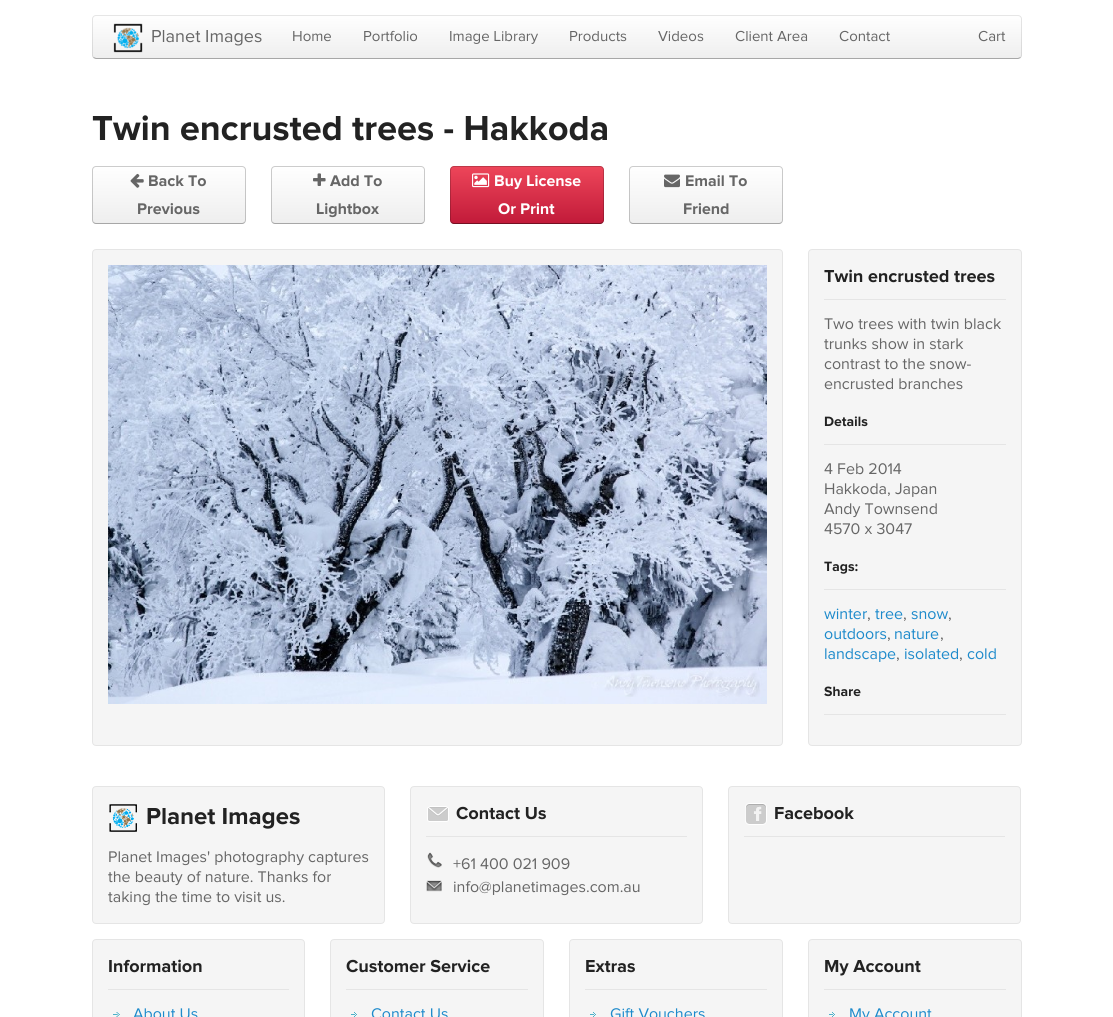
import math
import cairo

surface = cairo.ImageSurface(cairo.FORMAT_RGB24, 1113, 1017)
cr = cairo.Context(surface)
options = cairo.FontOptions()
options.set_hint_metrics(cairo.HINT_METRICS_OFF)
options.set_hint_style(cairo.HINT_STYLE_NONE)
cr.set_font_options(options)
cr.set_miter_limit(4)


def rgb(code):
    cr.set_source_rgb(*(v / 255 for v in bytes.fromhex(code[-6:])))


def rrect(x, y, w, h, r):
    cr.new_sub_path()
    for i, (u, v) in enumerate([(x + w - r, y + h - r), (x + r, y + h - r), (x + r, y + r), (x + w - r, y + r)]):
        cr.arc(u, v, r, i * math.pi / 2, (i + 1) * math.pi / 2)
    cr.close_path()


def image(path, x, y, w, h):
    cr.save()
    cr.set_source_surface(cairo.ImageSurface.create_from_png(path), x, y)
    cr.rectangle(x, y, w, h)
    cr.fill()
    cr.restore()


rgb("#ffffff")
cr.paint()
gradient = cairo.LinearGradient(557, 15, 557, 59)
gradient.add_color_stop_rgba(0, 1, 1, 1, 1)
gradient.add_color_stop_rgba(1, 0.933, 0.933, 0.933, 1)
cr.set_source(gradient)
rrect(92, 15, 930, 44, 4)
cr.fill()
cr.new_path()
cr.move_to(1020.5, 57.5)
cr.line_to(1018, 58.5)
cr.line_to(96, 58.5)
cr.line_to(93.5, 57.5)
rgb("#a7a7a7")
cr.set_line_width(1)
cr.stroke()
cr.new_path()
cr.move_to(93.5, 57.5)
cr.curve_to(93, 57, 92.5, 56, 92.5, 55)
cr.line_to(92.5, 19)
cr.curve_to(92.5, 18, 93, 17, 93.5, 16.5)
cr.curve_to(94, 16, 95, 15.5, 96, 15.5)
cr.line_to(1018, 15.5)
cr.curve_to(1019, 15.5, 1020, 16, 1020.5, 16.5)
cr.curve_to(1021, 17, 1021.5, 18, 1021.5, 19)
cr.line_to(1021.5, 55)
cr.curve_to(1021.5, 56, 1021, 57, 1020.5, 57.5)
cr.set_source_rgba(0, 0, 0, 0.1)
cr.stroke()
image("img/1.png", 113, 23, 30, 30)
image("img/2.png", 92, 115, 515, 26)
gradient = cairo.LinearGradient(169, 166, 169, 224)
gradient.add_color_stop_rgba(0, 1, 1, 1, 1)
gradient.add_color_stop_rgba(1, 0.933, 0.933, 0.933, 1)
cr.set_source(gradient)
rrect(92, 166, 154, 58, 4)
cr.fill()
cr.new_path()
cr.move_to(244.5, 222.5)
cr.curve_to(244, 223, 243, 223.5, 242, 223.5)
cr.line_to(96, 223.5)
cr.curve_to(95, 223.5, 94, 223, 93.5, 222.5)
cr.set_source_rgba(0, 0, 0, 0.3)
cr.stroke()
cr.new_path()
cr.move_to(93.5, 222.5)
cr.curve_to(93, 222, 92.5, 221, 92.5, 220)
cr.line_to(92.5, 170)
cr.curve_to(92.5, 169, 93, 168, 93.5, 167.5)
cr.curve_to(94, 167, 95, 166.5, 96, 166.5)
cr.line_to(242, 166.5)
cr.curve_to(243, 166.5, 244, 167, 244.5, 167.5)
cr.curve_to(245, 168, 245.5, 169, 245.5, 170)
cr.line_to(245.5, 220)
cr.curve_to(245.5, 221, 245, 222, 244.5, 222.5)
cr.set_source_rgba(0, 0, 0, 0.2)
cr.stroke()
image("img/3.png", 130, 173, 14, 15)
image("img/4.png", 149, 175, 57, 12)
image("img/5.png", 138, 203, 62, 12)
gradient = cairo.LinearGradient(348, 166, 348, 224)
gradient.add_color_stop_rgba(0, 1, 1, 1, 1)
gradient.add_color_stop_rgba(1, 0.933, 0.933, 0.933, 1)
cr.set_source(gradient)
rrect(271, 166, 154, 58, 4)
cr.fill()
cr.new_path()
cr.move_to(423.5, 222.5)
cr.curve_to(423, 223, 422, 223.5, 421, 223.5)
cr.line_to(275, 223.5)
cr.curve_to(274, 223.5, 273, 223, 272.5, 222.5)
cr.set_source_rgba(0, 0, 0, 0.3)
cr.stroke()
cr.new_path()
cr.move_to(272.5, 222.5)
cr.curve_to(272, 222, 271.5, 221, 271.5, 220)
cr.line_to(271.5, 170)
cr.curve_to(271.5, 169, 272, 168, 272.5, 167.5)
cr.curve_to(273, 167, 274, 166.5, 275, 166.5)
cr.line_to(421, 166.5)
cr.curve_to(422, 166.5, 423, 167, 423.5, 167.5)
cr.curve_to(424, 168, 424.5, 169, 424.5, 170)
cr.line_to(424.5, 220)
cr.curve_to(424.5, 221, 424, 222, 423.5, 222.5)
cr.set_source_rgba(0, 0, 0, 0.2)
cr.stroke()
image("img/6.png", 313, 173, 13, 13)
image("img/7.png", 330, 175, 52, 12)
image("img/8.png", 316, 203, 63, 15)
gradient = cairo.LinearGradient(527, 166, 527, 224)
gradient.add_color_stop_rgba(0, 0.933, 0.275, 0.353, 1)
gradient.add_color_stop_rgba(1, 0.757, 0.102, 0.224, 1)
cr.set_source(gradient)
rrect(450, 166, 154, 58, 4)
cr.fill()
cr.new_path()
cr.move_to(602.5, 222.5)
cr.curve_to(602, 223, 601, 223.5, 600, 223.5)
cr.line_to(454, 223.5)
cr.curve_to(453, 223.5, 452, 223, 451.5, 222.5)
cr.set_source_rgba(0, 0, 0, 0.4)
cr.stroke()
cr.new_path()
cr.move_to(451.5, 222.5)
cr.curve_to(451, 222, 450.5, 221, 450.5, 220)
cr.line_to(450.5, 170)
cr.curve_to(450.5, 169, 451, 168, 451.5, 167.5)
cr.curve_to(452, 167, 453, 166.5, 454, 166.5)
cr.line_to(600, 166.5)
cr.curve_to(601, 166.5, 602, 167, 602.5, 167.5)
cr.curve_to(603, 168, 603.5, 169, 603.5, 170)
cr.line_to(603.5, 220)
cr.curve_to(603.5, 221, 603, 222, 602.5, 222.5)
cr.set_source_rgba(0, 0, 0, 0.2)
cr.stroke()
image("img/9.png", 472, 173, 18, 15)
image("img/10.png", 495, 175, 86, 15)
image("img/11.png", 498, 203, 57, 12)
gradient = cairo.LinearGradient(706, 166, 706, 224)
gradient.add_color_stop_rgba(0, 1, 1, 1, 1)
gradient.add_color_stop_rgba(1, 0.933, 0.933, 0.933, 1)
cr.set_source(gradient)
rrect(629, 166, 154, 58, 4)
cr.fill()
cr.new_path()
cr.move_to(781.5, 222.5)
cr.curve_to(781, 223, 780, 223.5, 779, 223.5)
cr.line_to(633, 223.5)
cr.curve_to(632, 223.5, 631, 223, 630.5, 222.5)
cr.set_source_rgba(0, 0, 0, 0.3)
cr.stroke()
cr.new_path()
cr.move_to(630.5, 222.5)
cr.curve_to(630, 222, 629.5, 221, 629.5, 220)
cr.line_to(629.5, 170)
cr.curve_to(629.5, 169, 630, 168, 630.5, 167.5)
cr.curve_to(631, 167, 632, 166.5, 633, 166.5)
cr.line_to(779, 166.5)
cr.curve_to(780, 166.5, 781, 167, 781.5, 167.5)
cr.curve_to(782, 168, 782.5, 169, 782.5, 170)
cr.line_to(782.5, 220)
cr.curve_to(782.5, 221, 782, 222, 781.5, 222.5)
cr.set_source_rgba(0, 0, 0, 0.2)
cr.stroke()
image("img/12.png", 664, 174, 16, 14)
image("img/13.png", 686, 175, 61, 12)
image("img/14.png", 684, 203, 45, 12)
rgb("#f5f5f5")
rrect(92.5, 249.5, 690, 496, 3.5)
cr.fill_preserve()
rgb("#e5e5e5")
cr.stroke()
image("img/15.png", 108, 265, 659, 439)
rgb("#f5f5f5")
rrect(808.5, 249.5, 213, 496, 3.5)
cr.fill_preserve()
rgb("#e5e5e5")
cr.stroke()
cr.rectangle(824, 299, 182, 1)
cr.fill()
image("img/16.png", 824, 269, 171, 14)
cr.rectangle(824, 444, 182, 1)
cr.fill()
image("img/17.png", 824, 416, 44, 11)
cr.rectangle(824, 589, 182, 1)
cr.fill()
image("img/18.png", 824, 561, 34, 13)
cr.rectangle(824, 714, 182, 1)
cr.fill()
image("img/19.png", 824, 686, 37, 11)
rgb("#f5f5f5")
rrect(92.5, 786.5, 292, 137, 3.5)
cr.fill_preserve()
rgb("#e5e5e5")
cr.stroke()
image("img/20.png", 109, 804, 28, 28)
image("img/21.png", 147, 808, 153, 21)
rgb("#f5f5f5")
rrect(410.5, 786.5, 292, 137, 3.5)
cr.fill_preserve()
rgb("#e5e5e5")
cr.stroke()
image("img/22.png", 427, 806, 22, 16)
cr.rectangle(426, 836, 261, 1)
cr.fill()
image("img/23.png", 456, 806, 90, 14)
image("img/24.png", 427, 852, 15, 16)
image("img/25.png", 426, 880, 16, 12)
rgb("#f5f5f5")
rrect(728.5, 786.5, 292, 137, 3.5)
cr.fill_preserve()
rgb("#e5e5e5")
cr.stroke()
image("img/26.png", 745, 803, 22, 22)
cr.rectangle(744, 836, 261, 1)
cr.fill()
image("img/27.png", 775, 807, 79, 13)
rgb("#f5f5f5")
rrect(92.5, 939.5, 212, 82, 3.5)
cr.fill_preserve()
rgb("#e5e5e5")
cr.stroke()
cr.rectangle(108, 989, 181, 1)
cr.fill()
image("img/28.png", 109, 959, 93, 14)
image("img/29.png", 113, 1012, 7, 5)
rgb("#f5f5f5")
rrect(330.5, 939.5, 213, 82, 3.5)
cr.fill_preserve()
rgb("#e5e5e5")
cr.stroke()
cr.rectangle(346, 989, 182, 1)
cr.fill()
image("img/30.png", 346, 959, 144, 14)
image("img/31.png", 351, 1012, 6, 5)
rgb("#f5f5f5")
rrect(569.5, 939.5, 213, 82, 3.5)
cr.fill_preserve()
rgb("#e5e5e5")
cr.stroke()
cr.rectangle(585, 989, 182, 1)
cr.fill()
image("img/32.png", 586, 960, 49, 13)
image("img/31.png", 590, 1012, 6, 5)
rgb("#f5f5f5")
rrect(808.5, 939.5, 213, 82, 3.5)
cr.fill_preserve()
rgb("#e5e5e5")
cr.stroke()
cr.rectangle(824, 989, 182, 1)
cr.fill()
image("img/33.png", 825, 960, 96, 16)
image("img/31.png", 829, 1012, 6, 5)
cr.select_font_face("Proxima Nova")
cr.set_font_size(18)
rgb("#666666")
cr.move_to(151, 42)
cr.show_text("Planet Images")
cr.set_font_size(15)
for x, y, s in [
    (292, 41, "Home"),
    (363, 41, "Portfolio"),
    (449, 41, "Image Library"),
    (569, 41, "Products"),
    (658, 41, "Videos"),
    (735, 41, "Client Area"),
    (839, 41, "Contact"),
    (978, 41, "Cart"),
]:
    cr.move_to(x, y)
    cr.show_text(s)
cr.set_font_size(16)
for x, y, s in [
    (824, 329, "Two trees with twin black"),
    (824, 349, "trunks show in stark"),
    (824, 369, "contrast to the snow-"),
    (824, 389, "encrusted branches"),
    (824, 474, "4 Feb 2014"),
    (824, 494, "Hakkoda, Japan"),
    (824, 514, "Andy Townsend"),
    (824, 534, "4570 x 3047"),
]:
    cr.move_to(x, y)
    cr.show_text(s)
rgb("#1d8acb")
cr.move_to(824, 619)
cr.show_text("winter")
rgb("#666666")
cr.move_to(867, 619)
cr.show_text(",")
rgb("#1d8acb")
cr.move_to(875, 619)
cr.show_text("tree")
rgb("#666666")
cr.move_to(903, 619)
cr.show_text(",")
rgb("#1d8acb")
cr.move_to(911, 619)
cr.show_text("snow")
rgb("#666666")
cr.move_to(948, 619)
cr.show_text(",")
rgb("#1d8acb")
cr.move_to(824, 639)
cr.show_text("outdoors")
rgb("#666666")
cr.move_to(887, 639)
cr.show_text(",")
rgb("#1d8acb")
cr.move_to(894, 639)
cr.show_text("nature")
rgb("#666666")
cr.move_to(940, 639)
cr.show_text(",")
rgb("#1d8acb")
cr.move_to(824, 659)
cr.show_text("landscape")
rgb("#666666")
cr.move_to(896, 659)
cr.show_text(",")
rgb("#1d8acb")
cr.move_to(904, 659)
cr.show_text("isolated")
rgb("#666666")
cr.move_to(959, 659)
cr.show_text(",")
rgb("#1d8acb")
cr.move_to(967, 659)
cr.show_text("cold")
rgb("#666666")
for x, y, s in [
    (108, 862, "Planet Images' photography captures"),
    (108, 882, "the beauty of nature. Thanks for"),
    (108, 902, "taking the time to visit us."),
    (453, 869, "+61 400 021 909"),
    (453, 892, "info@planetimages.com.au"),
]:
    cr.move_to(x, y)
    cr.show_text(s)
rgb("#1d8acb")
for x, y, s in [
    (133, 1019, "About Us"),
    (371, 1019, "Contact Us"),
    (610, 1019, "Gift Vouchers"),
    (849, 1019, "My Account"),
]:
    cr.move_to(x, y)
    cr.show_text(s)
surface.write_to_png("page.png")
